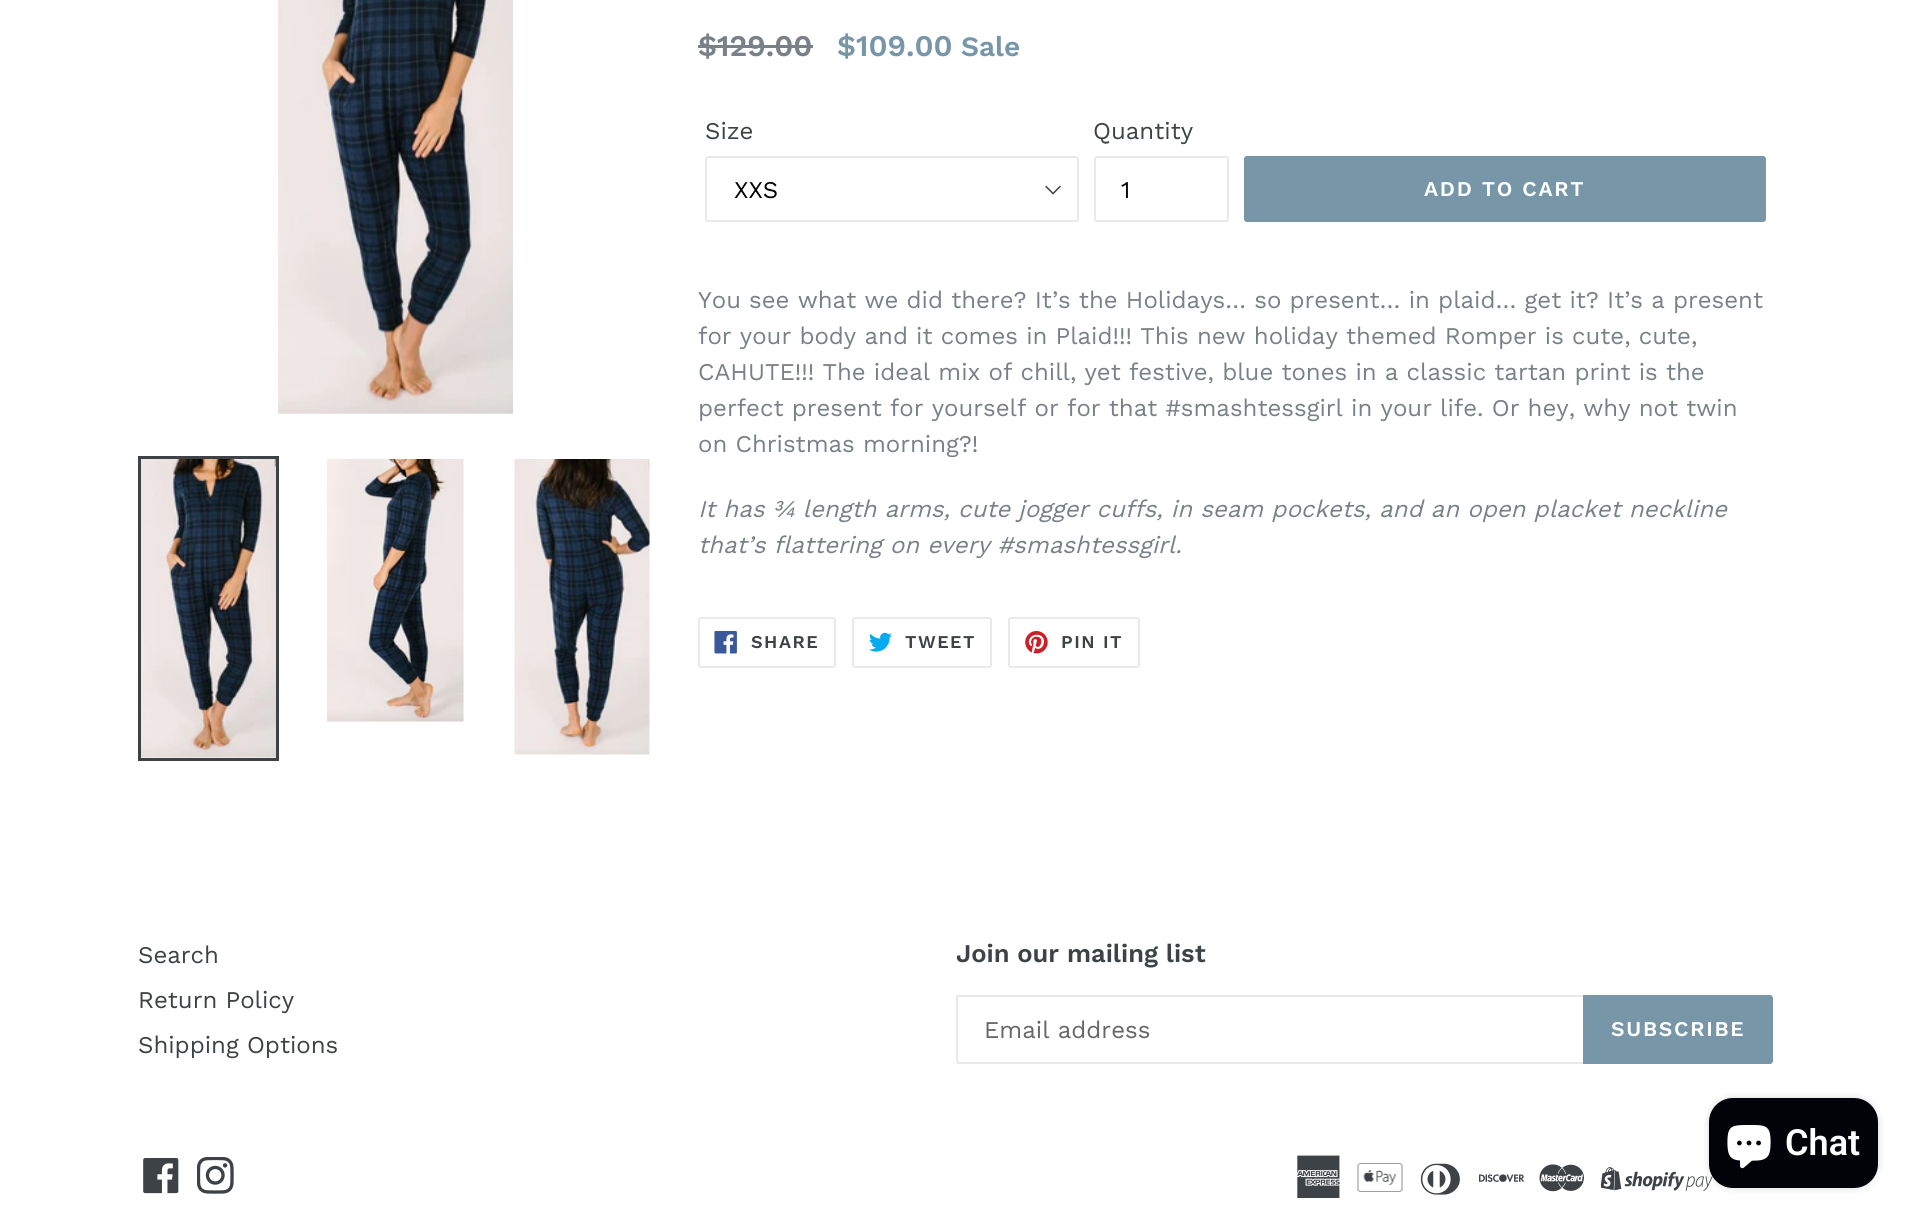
import math
import cairo

surface = cairo.ImageSurface(cairo.FORMAT_RGB24, 1911, 1219)
cr = cairo.Context(surface)
options = cairo.FontOptions()
options.set_hint_metrics(cairo.HINT_METRICS_OFF)
options.set_hint_style(cairo.HINT_STYLE_NONE)
cr.set_font_options(options)
cr.set_miter_limit(4)


def rgb(code):
    cr.set_source_rgb(*(v / 255 for v in bytes.fromhex(code[-6:])))


def tracked(x, y, s, letter, word):
    cr.move_to(x, y)
    for ch in s:
        cr.show_text(ch)
        cr.rel_move_to(letter + word * (ch == ' '), 0)


def rrect(x, y, w, h, r):
    cr.new_sub_path()
    for i, (u, v) in enumerate([(x + w - r, y + h - r), (x + r, y + h - r), (x + r, y + r), (x + w - r, y + r)]):
        cr.arc(u, v, r, i * math.pi / 2, (i + 1) * math.pi / 2)
    cr.close_path()


def soft_shadow(x, y, w, h, r, blur, alpha):
    cr.push_group_with_content(cairo.CONTENT_ALPHA)
    cr.set_operator(cairo.OPERATOR_SOURCE)
    for i in range(15, -16, -2):
        e = blur * i / 6
        if min(w, h) + 2 * e > 0:
            cr.set_source_rgba(0, 0, 0, alpha * math.erfc((i - 1) / 8.5) / 2)
            rrect(x - e, y - e, w + 2 * e, h + 2 * e, max(0, min(r + e + blur * .6, min(w, h) / 2 + e)))
            cr.fill()
    cr.mask(cr.pop_group())


def image(path, x, y, w, h):
    cr.save()
    cr.set_source_surface(cairo.ImageSurface.create_from_png(path), x, y)
    cr.rectangle(x, y, w, h)
    cr.fill()
    cr.restore()


rgb("#ffffff")
cr.paint()
image("img/1.png", 278, 0, 235, 414)
cr.rectangle(139.5, 457.5, 138, 302)
rgb("#3d4246")
cr.set_line_width(3)
cr.stroke()
image("img/2.png", 141, 459, 135, 299)
image("img/3.png", 327, 459, 137, 263)
image("img/4.png", 514, 459, 136, 296)
rgb("#788188")
cr.rectangle(698, 45, 115, 3)
cr.fill()
image("img/5.png", 1045, 185, 16, 10)
rrect(706, 157, 372, 64, 2)
rgb("#e8e9eb")
cr.set_line_width(2)
cr.stroke()
rrect(1095, 157, 133, 64, 2)
cr.stroke()
rgb("#7796a8")
rrect(1244, 156, 522, 66, 3)
cr.fill()
rrect(699, 618, 136, 49, 2)
rgb("#e8e9eb")
cr.stroke()
image("img/6.png", 714, 631, 23, 23)
rrect(853, 618, 138, 49, 2)
cr.stroke()
image("img/7.png", 869, 632, 23, 20)
rrect(1009, 618, 130, 49, 2)
cr.stroke()
image("img/8.png", 1025, 631, 23, 23)
for x, y, w, h, color in [
    (957, 995, 626, 2, "#e8e9eb"),
    (957, 1062, 626, 2, "#e8e9eb"),
    (956, 996, 2, 66, "#e8e9eb"),
]:
    rgb(color)
    cr.rectangle(x, y, w, h)
    cr.fill()
rgb("#7796a8")
cr.new_path()
cr.move_to(1583, 995)
cr.line_to(1770, 995)
cr.curve_to(1771.5, 995, 1773, 996.5, 1773, 998)
cr.line_to(1773, 1061)
cr.curve_to(1773, 1062.5, 1771.5, 1064, 1770, 1064)
cr.line_to(1583, 1064)
cr.close_path()
cr.fill()
image("img/9.png", 143, 1158, 36, 36)
image("img/10.png", 197, 1157, 37, 37)
image("img/11.png", 1297, 1155, 43, 43)
image("img/12.png", 1357, 1163, 46, 29)
image("img/13.png", 1420, 1163, 40, 32)
image("img/14.png", 1479, 1174, 45, 8)
image("img/15.png", 1539, 1164, 45, 28)
image("img/16.png", 1601, 1167, 112, 24)
rgb("#000000")
soft_shadow(1709, 1098, 169, 90, 24, 4, 0.15)
rgb("#000408")
rrect(1709, 1098, 169, 90, 24)
cr.fill()
image("img/17.png", 1727, 1125, 44, 44)
cr.select_font_face("Work Sans SemiBold")
cr.set_font_size(30)
rgb("#788188")
cr.move_to(698, 56)
cr.show_text("$129.00")
rgb("#7796a8")
cr.move_to(837, 56)
cr.show_text("$109.00")
cr.set_font_size(28)
cr.move_to(961, 56)
cr.show_text("Sale")
cr.select_font_face("Work Sans")
cr.set_font_size(24)
rgb("#3d4246")
cr.move_to(705, 139)
cr.show_text("Size")
rgb("#000000")
cr.move_to(734, 198)
cr.show_text("XXS")
rgb("#3d4246")
cr.move_to(1093, 139)
cr.show_text("Quantity")
rgb("#000000")
cr.move_to(1121, 198)
cr.show_text("1")
cr.select_font_face("Work Sans SemiBold")
cr.set_font_size(21)
rgb("#ffffff")
tracked(1424, 196, "ADD TO CART", 1.75, 0)
cr.select_font_face("Work Sans")
cr.set_font_size(24)
rgb("#788188")
for x, y, s in [
    (698, 308, "You see what we did there? It’s the Holidays… so present… in plaid… get it? It’s a present"),
    (698, 344, "for your body and it comes in Plaid!!! This new holiday themed Romper is cute, cute,"),
    (698, 380, "CAHUTE!!! The ideal mix of chill, yet festive, blue tones in a classic tartan print is the"),
    (698, 416, "perfect present for yourself or for that #smashtessgirl in your life. Or hey, why not twin"),
    (698, 452, "on Christmas morning?!"),
]:
    cr.move_to(x, y)
    cr.show_text(s)
cr.select_font_face("Work Sans", cairo.FONT_SLANT_ITALIC)
cr.move_to(698, 517)
cr.show_text("It has ¾ length arms, cute jogger cuffs, in seam pockets, and an open placket neckline")
cr.move_to(698, 553)
cr.show_text("that’s flattering on every #smashtessgirl.")
cr.select_font_face("Work Sans SemiBold")
cr.set_font_size(18)
rgb("#3d4246")
for x, y, s in [
    (751, 648, "SHARE"),
    (905, 648, "TWEET"),
    (1061, 648, "PIN IT"),
]:
    tracked(x, y, s, 1.5, 0)
cr.select_font_face("Work Sans")
cr.set_font_size(24)
for x, y, s in [
    (138, 963, "Search"),
    (138, 1008, "Return Policy"),
    (138, 1053, "Shipping Options"),
]:
    cr.move_to(x, y)
    cr.show_text(s)
cr.select_font_face("Work Sans SemiBold")
cr.set_font_size(25.5)
cr.move_to(956, 962)
cr.show_text("Join our mailing list")
cr.select_font_face("Work Sans")
cr.set_font_size(24)
rgb("#666666")
cr.move_to(984, 1038)
cr.show_text("Email address")
cr.select_font_face("Work Sans SemiBold")
cr.set_font_size(21)
rgb("#ffffff")
tracked(1611, 1036, "SUBSCRIBE", 1.75, 0)
cr.select_font_face("Roboto SemiBold")
cr.set_font_size(36)
cr.move_to(1785, 1155)
cr.show_text("Chat")
surface.write_to_png("page.png")
